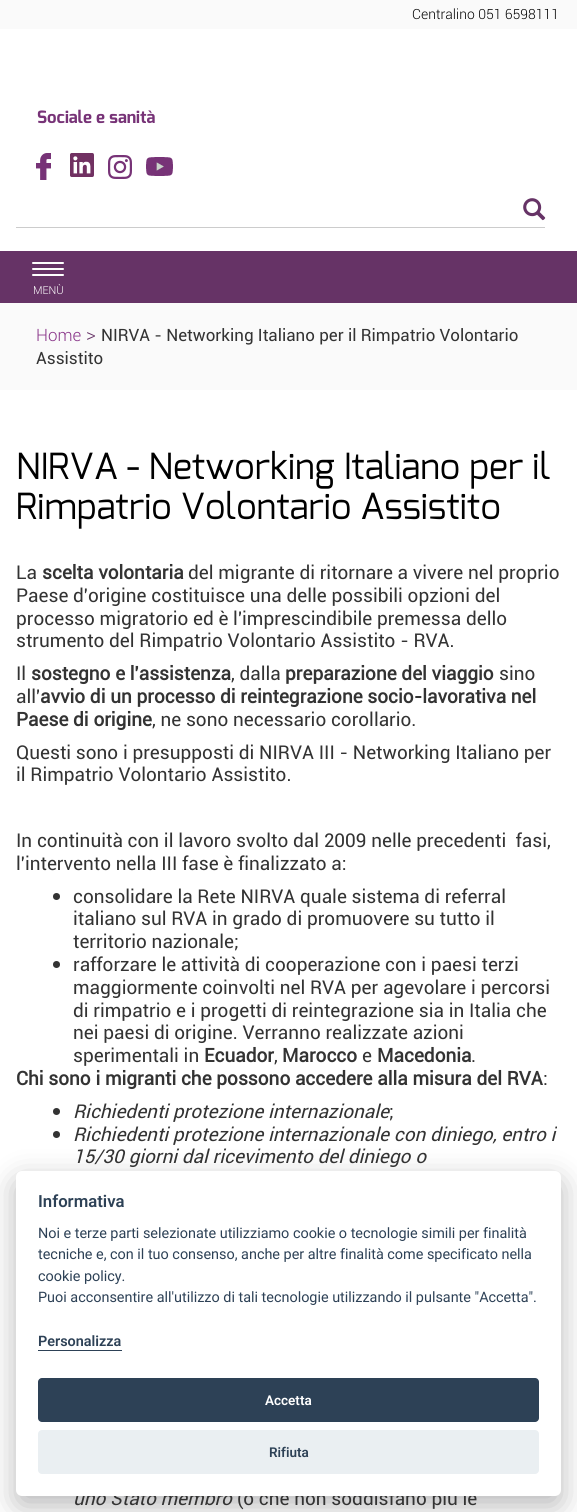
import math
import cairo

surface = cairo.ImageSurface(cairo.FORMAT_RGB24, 577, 1512)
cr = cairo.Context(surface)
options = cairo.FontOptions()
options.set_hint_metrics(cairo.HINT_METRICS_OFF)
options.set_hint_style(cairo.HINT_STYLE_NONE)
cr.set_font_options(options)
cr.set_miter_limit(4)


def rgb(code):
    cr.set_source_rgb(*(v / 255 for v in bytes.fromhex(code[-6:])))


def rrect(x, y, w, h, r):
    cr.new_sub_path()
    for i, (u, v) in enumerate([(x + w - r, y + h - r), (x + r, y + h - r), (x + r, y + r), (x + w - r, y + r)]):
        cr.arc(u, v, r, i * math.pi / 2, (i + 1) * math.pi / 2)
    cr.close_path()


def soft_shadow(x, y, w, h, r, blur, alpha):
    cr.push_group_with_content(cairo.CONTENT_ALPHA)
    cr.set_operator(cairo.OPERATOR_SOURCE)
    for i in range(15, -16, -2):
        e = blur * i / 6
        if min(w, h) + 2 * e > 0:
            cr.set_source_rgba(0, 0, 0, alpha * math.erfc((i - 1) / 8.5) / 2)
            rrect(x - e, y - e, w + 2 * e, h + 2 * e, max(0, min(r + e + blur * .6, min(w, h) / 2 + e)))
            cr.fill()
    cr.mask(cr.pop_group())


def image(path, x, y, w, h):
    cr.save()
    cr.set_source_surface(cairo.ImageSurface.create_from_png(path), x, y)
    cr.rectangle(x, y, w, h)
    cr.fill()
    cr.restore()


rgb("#ffffff")
cr.paint()
rgb("#fafafa")
cr.rectangle(0, 0, 577, 29)
cr.fill()
image("img/1.png", 36, 153, 15, 27)
image("img/2.png", 70, 153, 24, 24)
image("img/3.png", 108, 155, 24, 24)
image("img/4.png", 146, 157, 27, 19)
image("img/5.png", 523, 198, 23, 23)
rgb("#cccccc")
cr.rectangle(16, 227, 529, 1)
cr.fill()
rgb("#663366")
cr.rectangle(0, 251, 577, 52)
cr.fill()
rgb("#ffffff")
rrect(32, 262, 32, 2, 1)
cr.fill()
rrect(32, 268, 32, 2, 1)
cr.fill()
rrect(32, 274, 32, 2, 1)
cr.fill()
rgb("#fafafa")
cr.rectangle(0, 303, 577, 87)
cr.fill()
rgb("#333333")
cr.arc(56.5, 896.5, 3.5, 0, 2 * math.pi)
cr.fill()
cr.arc(56.5, 964.5, 3.5, 0, 2 * math.pi)
cr.fill()
cr.arc(56.5, 1111.5, 3.5, 0, 2 * math.pi)
cr.fill()
cr.arc(56.5, 1134.5, 3.5, 0, 2 * math.pi)
cr.fill()
rgb("#020203")
soft_shadow(16, 1181, 545, 325, 6, 15, 0.28)
cr.select_font_face("Roboto Light")
cr.set_font_size(14)
rgb("#000000")
cr.move_to(412, 19)
cr.show_text("Centralino 051 6598111")
cr.select_font_face("Exo", cairo.FONT_SLANT_NORMAL, cairo.FONT_WEIGHT_BOLD)
cr.set_font_size(17)
rgb("#773377")
cr.move_to(37, 123)
cr.show_text("Sociale e sanità")
cr.select_font_face("Roboto Light")
cr.set_font_size(11)
rgb("#ffffff")
cr.move_to(33, 294)
cr.show_text("MENÙ")
cr.set_font_size(17)
rgb("#883388")
cr.move_to(36, 341)
cr.show_text("Home")
cr.set_font_size(19)
rgb("#663366")
cr.move_to(86, 341)
cr.show_text(">")
cr.select_font_face("Roboto")
cr.set_font_size(17)
rgb("#333333")
cr.move_to(101, 341)
cr.show_text("NIRVA - Networking Italiano per il Rimpatrio Volontario")
cr.move_to(36, 364)
cr.show_text("Assistito")
cr.select_font_face("Exo")
cr.set_font_size(36)
rgb("#000000")
cr.move_to(16, 479)
cr.show_text("NIRVA - Networking Italiano per il")
cr.move_to(16, 519)
cr.show_text("Rimpatrio Volontario Assistito")
cr.select_font_face("Roboto")
cr.set_font_size(19)
rgb("#333333")
cr.move_to(16, 579)
cr.show_text("La")
cr.select_font_face("Roboto", cairo.FONT_SLANT_NORMAL, cairo.FONT_WEIGHT_BOLD)
cr.move_to(42, 579)
cr.show_text("scelta volontaria")
cr.select_font_face("Roboto")
for x, y, s in [
    (188, 579, "del migrante di ritornare a vivere nel proprio"),
    (16, 602, "Paese d'origine costituisce una delle possibili opzioni del"),
    (16, 625, "processo migratorio ed è l'imprescindibile premessa dello"),
    (16, 647, "strumento del Rimpatrio Volontario Assistito - RVA."),
    (16, 680, "Il"),
]:
    cr.move_to(x, y)
    cr.show_text(s)
cr.select_font_face("Roboto", cairo.FONT_SLANT_NORMAL, cairo.FONT_WEIGHT_BOLD)
cr.move_to(31, 680)
cr.show_text("sostegno e l'assistenza")
cr.select_font_face("Roboto")
cr.move_to(231, 680)
cr.show_text(", dalla")
cr.select_font_face("Roboto", cairo.FONT_SLANT_NORMAL, cairo.FONT_WEIGHT_BOLD)
cr.move_to(285, 680)
cr.show_text("preparazione del viaggio")
cr.select_font_face("Roboto")
cr.move_to(499, 680)
cr.show_text("sino")
cr.move_to(16, 703)
cr.show_text("all'")
cr.select_font_face("Roboto", cairo.FONT_SLANT_NORMAL, cairo.FONT_WEIGHT_BOLD)
cr.move_to(40, 703)
cr.show_text("avvio di un processo di reintegrazione socio-lavorativa nel")
cr.move_to(16, 726)
cr.show_text("Paese di origine")
cr.select_font_face("Roboto")
for x, y, s in [
    (152, 726, ", ne sono necessario corollario."),
    (16, 759, "Questi sono i presupposti di NIRVA III - Networking Italiano per"),
    (16, 781, "il Rimpatrio Volontario Assistito."),
    (16, 847, "In continuità con il lavoro svolto dal 2009 nelle precedenti  fasi,"),
    (16, 870, "l'intervento nella III fase è finalizzato a:"),
    (73, 903, "consolidare la Rete NIRVA quale sistema di referral"),
    (73, 925, "italiano sul RVA in grado di promuovere su tutto il"),
    (73, 948, "territorio nazionale;"),
    (73, 971, "rafforzare le attività di cooperazione con i paesi terzi"),
    (73, 994, "maggiormente coinvolti nel RVA per agevolare i percorsi"),
    (73, 1017, "di rimpatrio e i progetti di reintegrazione sia in Italia che"),
    (73, 1039, "nei paesi di origine. Verranno realizzate azioni"),
    (73, 1062, "sperimentali in"),
]:
    cr.move_to(x, y)
    cr.show_text(s)
cr.select_font_face("Roboto", cairo.FONT_SLANT_NORMAL, cairo.FONT_WEIGHT_BOLD)
cr.move_to(204, 1062)
cr.show_text("Ecuador")
cr.select_font_face("Roboto")
cr.move_to(274, 1062)
cr.show_text(",")
cr.select_font_face("Roboto", cairo.FONT_SLANT_NORMAL, cairo.FONT_WEIGHT_BOLD)
cr.move_to(282, 1062)
cr.show_text("Marocco")
cr.select_font_face("Roboto")
cr.move_to(362, 1062)
cr.show_text("e")
cr.select_font_face("Roboto", cairo.FONT_SLANT_NORMAL, cairo.FONT_WEIGHT_BOLD)
cr.move_to(377, 1062)
cr.show_text("Macedonia")
cr.select_font_face("Roboto")
cr.move_to(471, 1062)
cr.show_text(".")
cr.select_font_face("Roboto", cairo.FONT_SLANT_NORMAL, cairo.FONT_WEIGHT_BOLD)
cr.move_to(16, 1085)
cr.show_text("Chi sono i migranti che possono accedere alla misura del RVA")
cr.select_font_face("Roboto")
cr.move_to(543, 1085)
cr.show_text(":")
cr.select_font_face("Roboto", cairo.FONT_SLANT_ITALIC)
cr.move_to(73, 1118)
cr.show_text("Richiedenti protezione internazionale")
cr.select_font_face("Roboto")
cr.move_to(389, 1118)
cr.show_text(";")
cr.select_font_face("Roboto", cairo.FONT_SLANT_ITALIC)
for x, y, s in [
    (73, 1141, "Richiedenti protezione internazionale con diniego, entro i"),
    (73, 1163, "15/30 giorni dal ricevimento del diniego o"),
    (73, 1505, "uno Stato membro"),
]:
    cr.move_to(x, y)
    cr.show_text(s)
cr.select_font_face("Roboto")
cr.move_to(237, 1505)
cr.show_text("(o che non soddisfano più le")
rgb("#ffffff")
rrect(16, 1171, 545, 325, 6)
cr.fill()
cr.select_font_face("Roboto SemiBold")
cr.set_font_size(16.75)
rgb("#2d4156")
cr.move_to(38, 1207)
cr.show_text("Informativa")
cr.select_font_face("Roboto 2")
cr.set_font_size(14.4)
for x, y, s in [
    (38, 1238, "Noi e terze parti selezionate utilizziamo cookie o tecnologie simili per finalità"),
    (38, 1259, "tecniche e, con il tuo consenso, anche per altre finalità come specificato nella"),
    (38, 1281, "cookie policy."),
    (38, 1302, "Puoi acconsentire all'utilizzo di tali tecnologie utilizzando il pulsante \"Accetta\"."),
]:
    cr.move_to(x, y)
    cr.show_text(s)
cr.select_font_face("Roboto SemiBold")
cr.move_to(38, 1346)
cr.show_text("Personalizza")
cr.rectangle(38, 1350, 84, 1)
cr.fill()
rrect(38, 1378, 501, 44, 4)
cr.fill()
cr.set_font_size(13.5)
rgb("#ffffff")
cr.move_to(265, 1405)
cr.show_text("Accetta")
rgb("#eaeff2")
rrect(38, 1430, 501, 44, 4)
cr.fill()
rgb("#2d4156")
cr.move_to(269, 1457)
cr.show_text("Rifiuta")
surface.write_to_png("page.png")
